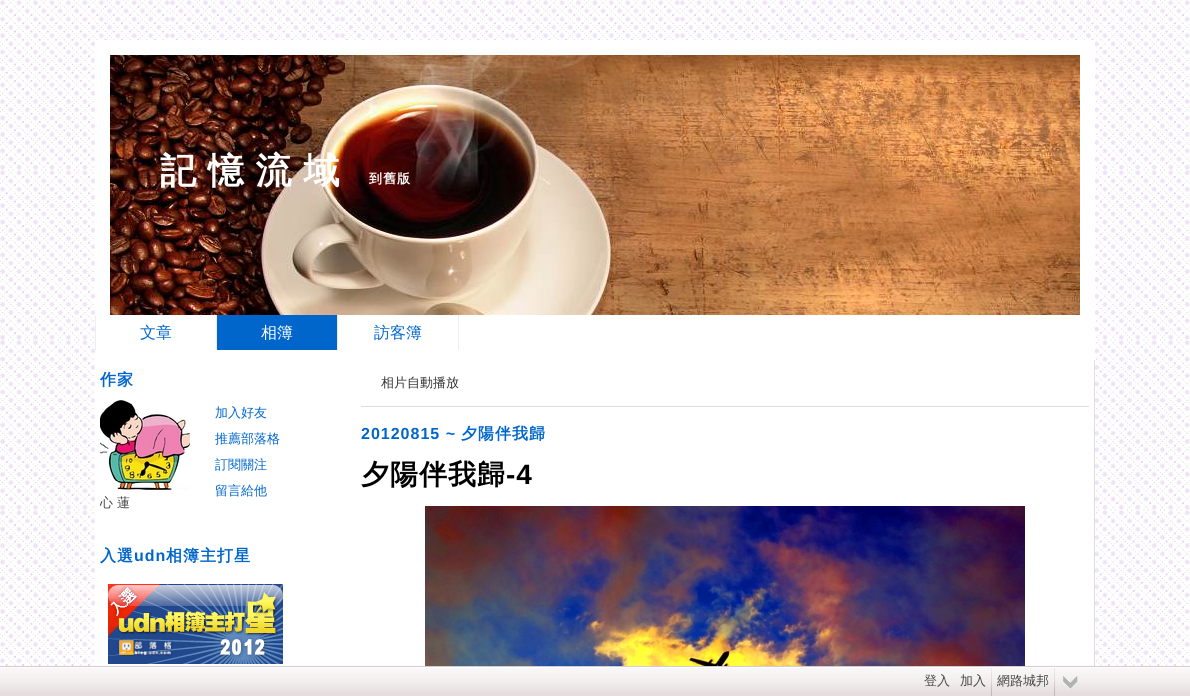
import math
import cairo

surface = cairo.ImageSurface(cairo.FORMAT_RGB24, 1190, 696)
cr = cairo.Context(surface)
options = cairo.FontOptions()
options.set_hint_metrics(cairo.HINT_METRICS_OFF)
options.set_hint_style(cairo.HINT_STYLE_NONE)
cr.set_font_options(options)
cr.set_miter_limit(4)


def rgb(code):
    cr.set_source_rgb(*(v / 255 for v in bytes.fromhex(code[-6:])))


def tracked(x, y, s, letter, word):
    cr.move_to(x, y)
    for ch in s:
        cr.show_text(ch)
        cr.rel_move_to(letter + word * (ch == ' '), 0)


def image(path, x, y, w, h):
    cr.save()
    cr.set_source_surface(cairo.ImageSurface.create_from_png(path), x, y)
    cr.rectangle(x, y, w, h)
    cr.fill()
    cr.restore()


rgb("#ffffff")
cr.paint()
image("img/1.png", 0, 0, 1190, 666)
image("img/2.png", 110, 55, 970, 260)
cr.rectangle(102.5, 47.5, 985, 295)
rgb("#ffffff")
cr.set_line_width(15)
cr.stroke()
for x, y, w, h, color in [
    (95, 315, 1000, 45, "#ffffff"),
    (95, 315, 1, 35, "#eeeeee"),
    (216, 315, 1, 35, "#eeeeee"),
    (337, 315, 1, 35, "#eeeeee"),
    (217, 315, 120, 35, "#0066cc"),
    (458, 315, 1, 35, "#eeeeee"),
    (95, 360, 999, 306, "#ffffff"),
]:
    rgb(color)
    cr.rectangle(x, y, w, h)
    cr.fill()
image("img/3.png", 100, 400, 90, 90)
image("img/4.png", 108, 584, 175, 80)
rgb("#dddddd")
cr.rectangle(1094, 360, 1, 306)
cr.fill()
cr.rectangle(361, 406, 728, 1)
cr.fill()
image("img/5.png", 425, 506, 600, 160)
image("img/6.png", 0, 666, 1190, 30)
image("img/7.png", 991, 668, 1, 28)
image("img/7.png", 1054, 668, 1, 28)
image("img/8.png", 1063, 675, 15, 14)
cr.select_font_face("WenQuanYi Zen Hei", cairo.FONT_SLANT_NORMAL, cairo.FONT_WEIGHT_BOLD)
cr.set_font_size(36)
rgb("#ffffff")
tracked(160, 183, "記 憶 流 域", 1, -1)
cr.set_font_size(13)
tracked(369, 183, "到舊版", 1, 0)
cr.select_font_face("WenQuanYi Zen Hei Medium")
cr.set_font_size(16)
rgb("#0066cc")
cr.move_to(140, 338)
cr.show_text("文章")
rgb("#ffffff")
cr.move_to(261, 338)
cr.show_text("相簿")
rgb("#0066cc")
cr.move_to(374, 338)
cr.show_text("訪客簿")
cr.select_font_face("WenQuanYi Zen Hei", cairo.FONT_SLANT_NORMAL, cairo.FONT_WEIGHT_BOLD)
tracked(100, 385, "作家", 1, 0)
cr.select_font_face("WenQuanYi Zen Hei Medium")
cr.set_font_size(13)
for x, y, s in [
    (215, 417, "加入好友"),
    (215, 443, "推薦部落格"),
    (215, 469, "訂閱關注"),
    (215, 495, "留言給他"),
]:
    cr.move_to(x, y)
    cr.show_text(s)
rgb("#444444")
cr.move_to(100, 507)
cr.show_text("心 蓮")
cr.select_font_face("WenQuanYi Zen Hei", cairo.FONT_SLANT_NORMAL, cairo.FONT_WEIGHT_BOLD)
cr.set_font_size(16)
rgb("#0066cc")
tracked(100, 561, "入選", 1, 0)
cr.select_font_face("Liberation Sans", cairo.FONT_SLANT_NORMAL, cairo.FONT_WEIGHT_BOLD)
tracked(134, 561, "udn", 1, 0)
cr.select_font_face("WenQuanYi Zen Hei", cairo.FONT_SLANT_NORMAL, cairo.FONT_WEIGHT_BOLD)
tracked(166, 561, "相簿主打星", 1, 0)
cr.select_font_face("WenQuanYi Zen Hei Medium")
cr.set_font_size(13)
rgb("#333333")
cr.move_to(381, 387)
cr.show_text("相片自動播放")
cr.select_font_face("Liberation Sans", cairo.FONT_SLANT_NORMAL, cairo.FONT_WEIGHT_BOLD)
cr.set_font_size(16)
rgb("#0066cc")
tracked(361, 439, "20120815 ~", 1, 0)
cr.select_font_face("WenQuanYi Zen Hei", cairo.FONT_SLANT_NORMAL, cairo.FONT_WEIGHT_BOLD)
tracked(461, 439, "夕陽伴我歸", 1, 0)
cr.set_font_size(28)
rgb("#000000")
tracked(361, 484, "夕陽伴我歸", 1, 0)
cr.select_font_face("Liberation Sans", cairo.FONT_SLANT_NORMAL, cairo.FONT_WEIGHT_BOLD)
tracked(506, 484, "-4", 1, 0)
cr.select_font_face("WenQuanYi Zen Hei Medium")
cr.set_font_size(13)
rgb("#444444")
for x, y, s in [
    (924, 685, "登入"),
    (960, 685, "加入"),
    (997, 685, "網路城邦"),
]:
    cr.move_to(x, y)
    cr.show_text(s)
surface.write_to_png("page.png")
